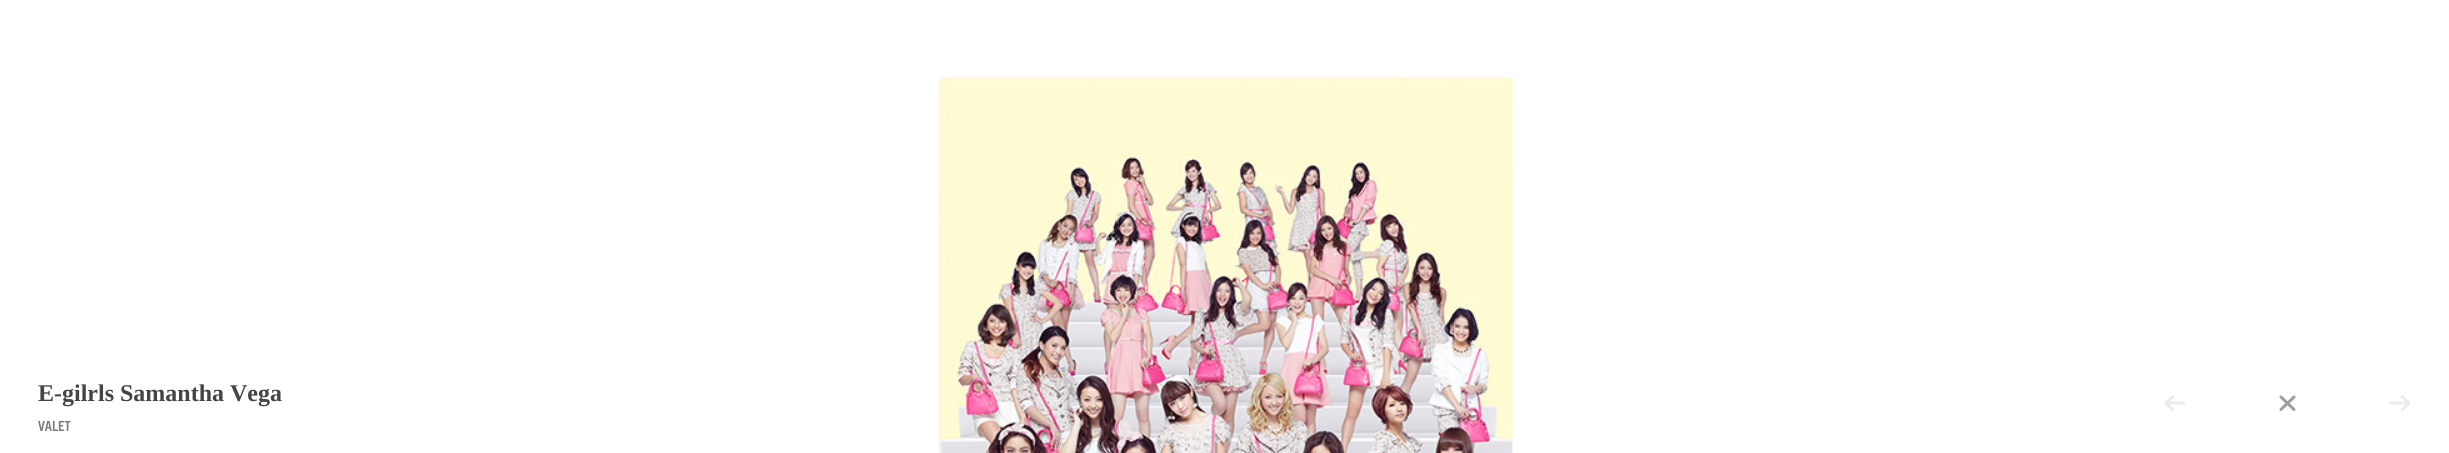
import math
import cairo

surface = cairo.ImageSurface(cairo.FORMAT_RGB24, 2449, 453)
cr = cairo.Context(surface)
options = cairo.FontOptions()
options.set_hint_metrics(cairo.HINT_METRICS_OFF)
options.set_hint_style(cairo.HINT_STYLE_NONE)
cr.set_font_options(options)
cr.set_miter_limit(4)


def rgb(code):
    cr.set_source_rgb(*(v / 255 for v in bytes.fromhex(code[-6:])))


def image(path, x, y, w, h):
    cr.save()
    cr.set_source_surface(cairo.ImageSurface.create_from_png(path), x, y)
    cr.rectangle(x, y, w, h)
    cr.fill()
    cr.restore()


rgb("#ffffff")
cr.paint()
cr.new_path()
cr.move_to(2173, 410)
cr.line_to(2166, 403)
cr.line_to(2173, 396.5)
cr.move_to(2166, 403)
cr.line_to(2184, 403)
rgb("#ececec")
cr.set_line_width(3)
cr.set_line_cap(cairo.LINE_CAP_ROUND)
cr.set_line_join(cairo.LINE_JOIN_ROUND)
cr.stroke()
cr.new_path()
cr.move_to(2281, 397)
cr.line_to(2294, 409.5)
cr.move_to(2294, 397)
cr.line_to(2281, 409.5)
rgb("#9f9f9f")
cr.stroke()
cr.new_path()
cr.move_to(2402, 396.5)
cr.line_to(2409, 403)
cr.line_to(2402, 410)
cr.move_to(2409, 403)
cr.line_to(2391, 403)
rgb("#ececec")
cr.stroke()
image("img/1.png", 938, 77, 575, 376)
cr.select_font_face("Liberation Serif", cairo.FONT_SLANT_NORMAL, cairo.FONT_WEIGHT_BOLD)
cr.set_font_size(24)
rgb("#444444")
cr.move_to(38, 401)
cr.show_text("E-gilrls Samantha Vega")
cr.select_font_face("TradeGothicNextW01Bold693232", cairo.FONT_SLANT_NORMAL, cairo.FONT_WEIGHT_BOLD)
cr.set_font_size(14)
rgb("#7b7b7b")
cr.move_to(38, 431)
cr.show_text("VALET")
surface.write_to_png("page.png")
